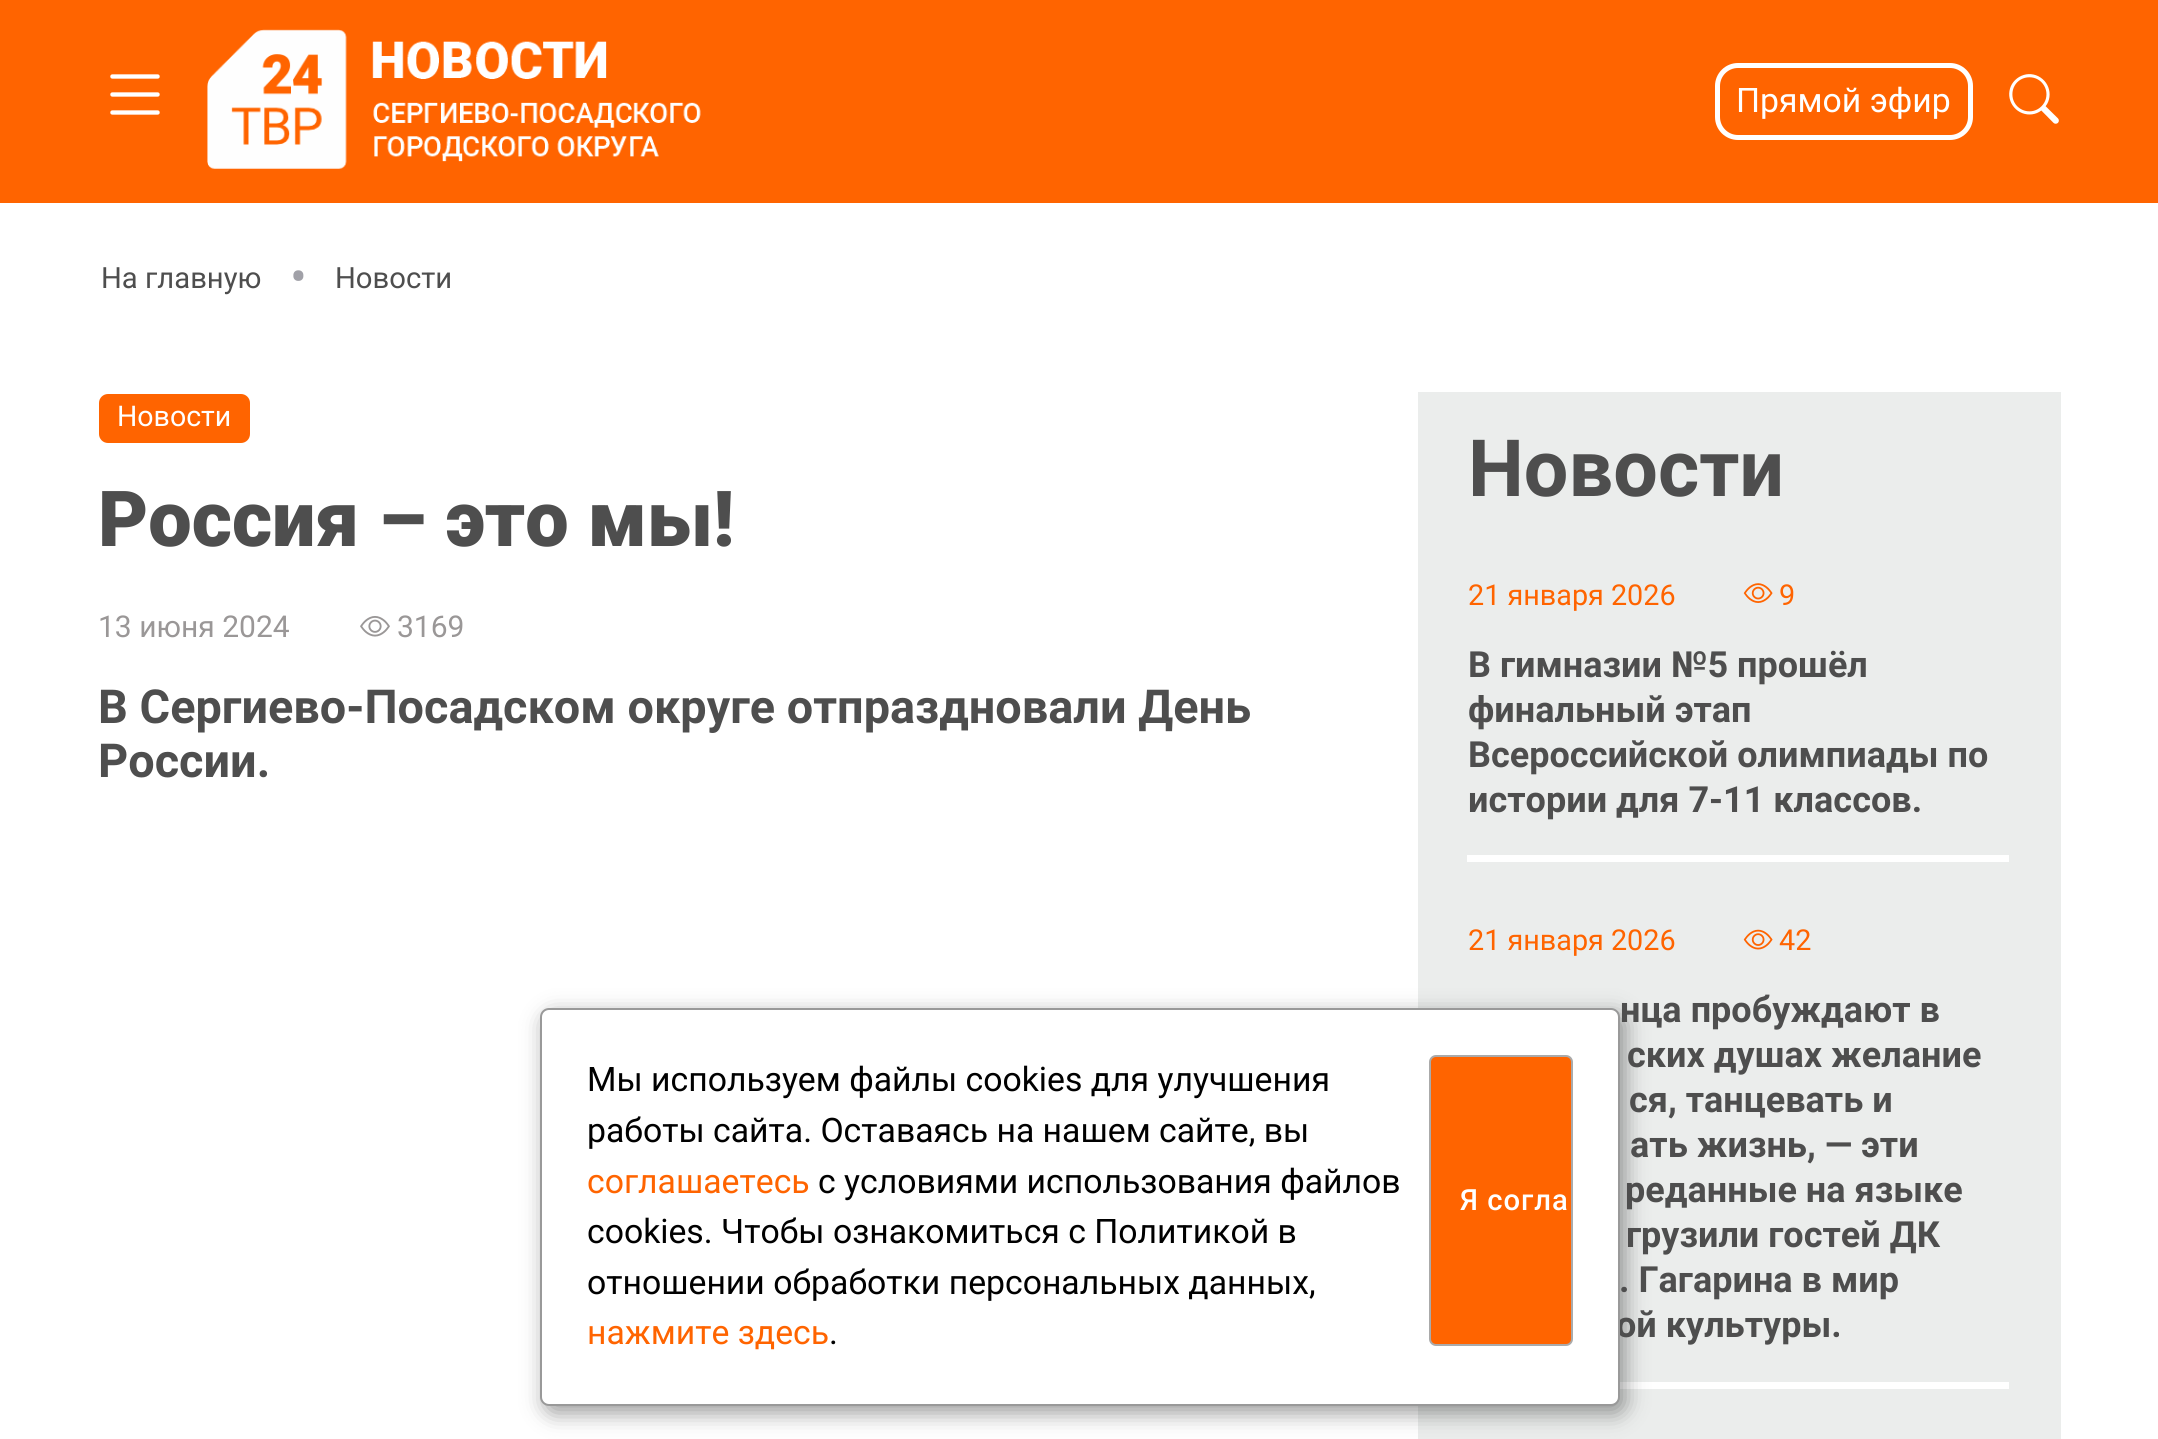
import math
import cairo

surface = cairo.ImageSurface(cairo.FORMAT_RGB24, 2158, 1439)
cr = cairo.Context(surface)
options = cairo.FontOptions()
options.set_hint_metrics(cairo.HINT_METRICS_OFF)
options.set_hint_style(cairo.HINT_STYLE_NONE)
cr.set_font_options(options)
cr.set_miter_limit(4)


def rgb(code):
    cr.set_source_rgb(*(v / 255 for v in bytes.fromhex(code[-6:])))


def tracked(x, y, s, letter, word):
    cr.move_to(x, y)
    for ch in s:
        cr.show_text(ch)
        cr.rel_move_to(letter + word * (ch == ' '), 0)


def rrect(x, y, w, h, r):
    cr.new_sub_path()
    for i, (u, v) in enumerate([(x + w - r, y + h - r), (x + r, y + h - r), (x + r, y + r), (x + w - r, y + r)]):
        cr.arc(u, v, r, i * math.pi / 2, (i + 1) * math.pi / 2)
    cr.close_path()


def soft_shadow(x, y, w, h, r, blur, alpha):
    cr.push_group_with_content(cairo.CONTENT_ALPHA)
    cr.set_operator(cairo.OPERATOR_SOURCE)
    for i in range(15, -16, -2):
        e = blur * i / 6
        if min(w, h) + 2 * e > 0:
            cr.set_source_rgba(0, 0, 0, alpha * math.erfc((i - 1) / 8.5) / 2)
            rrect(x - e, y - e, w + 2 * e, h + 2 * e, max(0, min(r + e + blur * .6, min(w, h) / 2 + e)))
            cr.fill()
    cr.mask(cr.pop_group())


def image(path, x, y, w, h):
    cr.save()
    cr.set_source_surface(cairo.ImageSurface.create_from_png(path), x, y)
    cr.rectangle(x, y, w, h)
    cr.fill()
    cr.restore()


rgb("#ffffff")
cr.paint()
rgb("#ff6400")
cr.rectangle(0, 0, 2158, 203)
cr.fill()
image("img/1.png", 110, 74, 50, 41)
image("img/2.png", 207, 29, 494, 140)
rrect(1717.5, 65.5, 253, 72, 20.5)
rgb("#ffffff")
cr.set_line_width(5)
cr.stroke()
image("img/3.png", 2009, 74, 50, 50)
rgb("#ff6400")
rrect(99, 394, 151, 49, 9)
cr.fill()
image("img/4.png", 360, 616, 30, 21)
rgb("#ebedec")
cr.rectangle(1418, 392, 643, 1047)
cr.fill()
rgb("#ffffff")
cr.rectangle(1467, 855, 542, 7)
cr.fill()
image("img/5.png", 1743, 583, 30, 20)
cr.rectangle(1620, 1382, 389, 7)
cr.fill()
image("img/6.png", 1743, 929, 30, 21)
rgb("#000000")
soft_shadow(545, 1015, 1080, 398, 9, 11, 0.4)
cr.select_font_face("Roboto")
cr.set_font_size(33.75)
rgb("#ffffff")
cr.move_to(1736, 112)
cr.show_text("Прямой эфир")
cr.set_font_size(29.25)
rgb("#4e4e4e")
cr.move_to(101, 288)
cr.show_text("На главную")
cr.set_font_size(50)
rgb("#a1a1a8")
cr.move_to(290, 294)
cr.show_text("•")
cr.set_font_size(29.25)
rgb("#4e4e4e")
cr.move_to(335, 288)
cr.show_text("Новости")
cr.set_font_size(28.5)
rgb("#ffffff")
cr.move_to(117, 426)
cr.show_text("Новости")
cr.select_font_face("Roboto Black")
cr.set_font_size(77.25)
rgb("#4e4e4e")
cr.move_to(98, 546)
cr.show_text("Россия – это мы!")
cr.select_font_face("Roboto")
cr.set_font_size(30)
rgb("#9a9797")
cr.move_to(98, 637)
cr.show_text("13 июня 2024")
cr.move_to(397, 637)
cr.show_text("3169")
cr.select_font_face("Roboto", cairo.FONT_SLANT_NORMAL, cairo.FONT_WEIGHT_BOLD)
cr.set_font_size(46.8)
rgb("#4e4e4e")
cr.move_to(98, 723)
cr.show_text("В Сергиево-Посадском округе отпраздновали День")
cr.move_to(98, 777)
cr.show_text("России.")
cr.set_font_size(79)
cr.move_to(1468, 496)
cr.show_text("Новости")
cr.select_font_face("Roboto")
cr.set_font_size(28.75)
rgb("#ff6400")
cr.move_to(1468, 605)
cr.show_text("21 января 2026")
cr.move_to(1779, 605)
cr.show_text("9")
cr.select_font_face("Roboto", cairo.FONT_SLANT_NORMAL, cairo.FONT_WEIGHT_BOLD)
cr.set_font_size(36)
rgb("#4e4e4e")
for x, y, s in [
    (1468, 677, "В гимназии №5 прошёл"),
    (1468, 722, "финальный этап"),
    (1468, 767, "Всероссийской олимпиады по"),
    (1468, 812, "истории для 7-11 классов."),
]:
    cr.move_to(x, y)
    cr.show_text(s)
cr.select_font_face("Roboto")
cr.set_font_size(28.75)
rgb("#ff6400")
cr.move_to(1468, 950)
cr.show_text("21 января 2026")
cr.move_to(1779, 950)
cr.show_text("42")
cr.select_font_face("Roboto", cairo.FONT_SLANT_NORMAL, cairo.FONT_WEIGHT_BOLD)
cr.set_font_size(36)
rgb("#4e4e4e")
for x, y, s in [
    (1620, 1022, "нца пробуждают в"),
    (1627, 1067, "ских душах желание"),
    (1629, 1112, "ся, танцевать и"),
    (1630, 1157, "ать жизнь, — эти"),
    (1625, 1202, "реданные на языке"),
    (1626, 1247, "грузили гостей ДК"),
    (1619, 1292, ". Гагарина в мир"),
    (1616, 1337, "ой культуры."),
]:
    cr.move_to(x, y)
    cr.show_text(s)
rgb("#ffffff")
rrect(541, 1009, 1078, 396, 8)
cr.fill_preserve()
rgb("#999999")
cr.set_line_width(2)
cr.stroke()
cr.select_font_face("Roboto")
cr.set_font_size(33.75)
rgb("#000000")
cr.move_to(587, 1091)
cr.show_text("Мы используем файлы cookies для улучшения")
cr.move_to(587, 1142)
cr.show_text("работы сайта. Оставаясь на нашем сайте, вы")
rgb("#ff6400")
cr.move_to(587, 1193)
cr.show_text("соглашаетесь")
rgb("#000000")
for x, y, s in [
    (818, 1193, "с условиями использования файлов"),
    (587, 1243, "cookies. Чтобы ознакомиться с Политикой в"),
    (587, 1294, "отношении обработки персональных данных,"),
]:
    cr.move_to(x, y)
    cr.show_text(s)
rgb("#ff6400")
cr.move_to(587, 1344)
cr.show_text("нажмите здесь")
rgb("#000000")
cr.move_to(829, 1344)
cr.show_text(".")
rgb("#ff6400")
rrect(1430, 1056, 142, 289, 6)
cr.fill_preserve()
rgb("#aaaaaa")
cr.stroke()
cr.select_font_face("Roboto Medium")
cr.set_font_size(29.25)
rgb("#ffffff")
tracked(1460, 1210, "Я согла", 1, 0)
surface.write_to_png("page.png")
